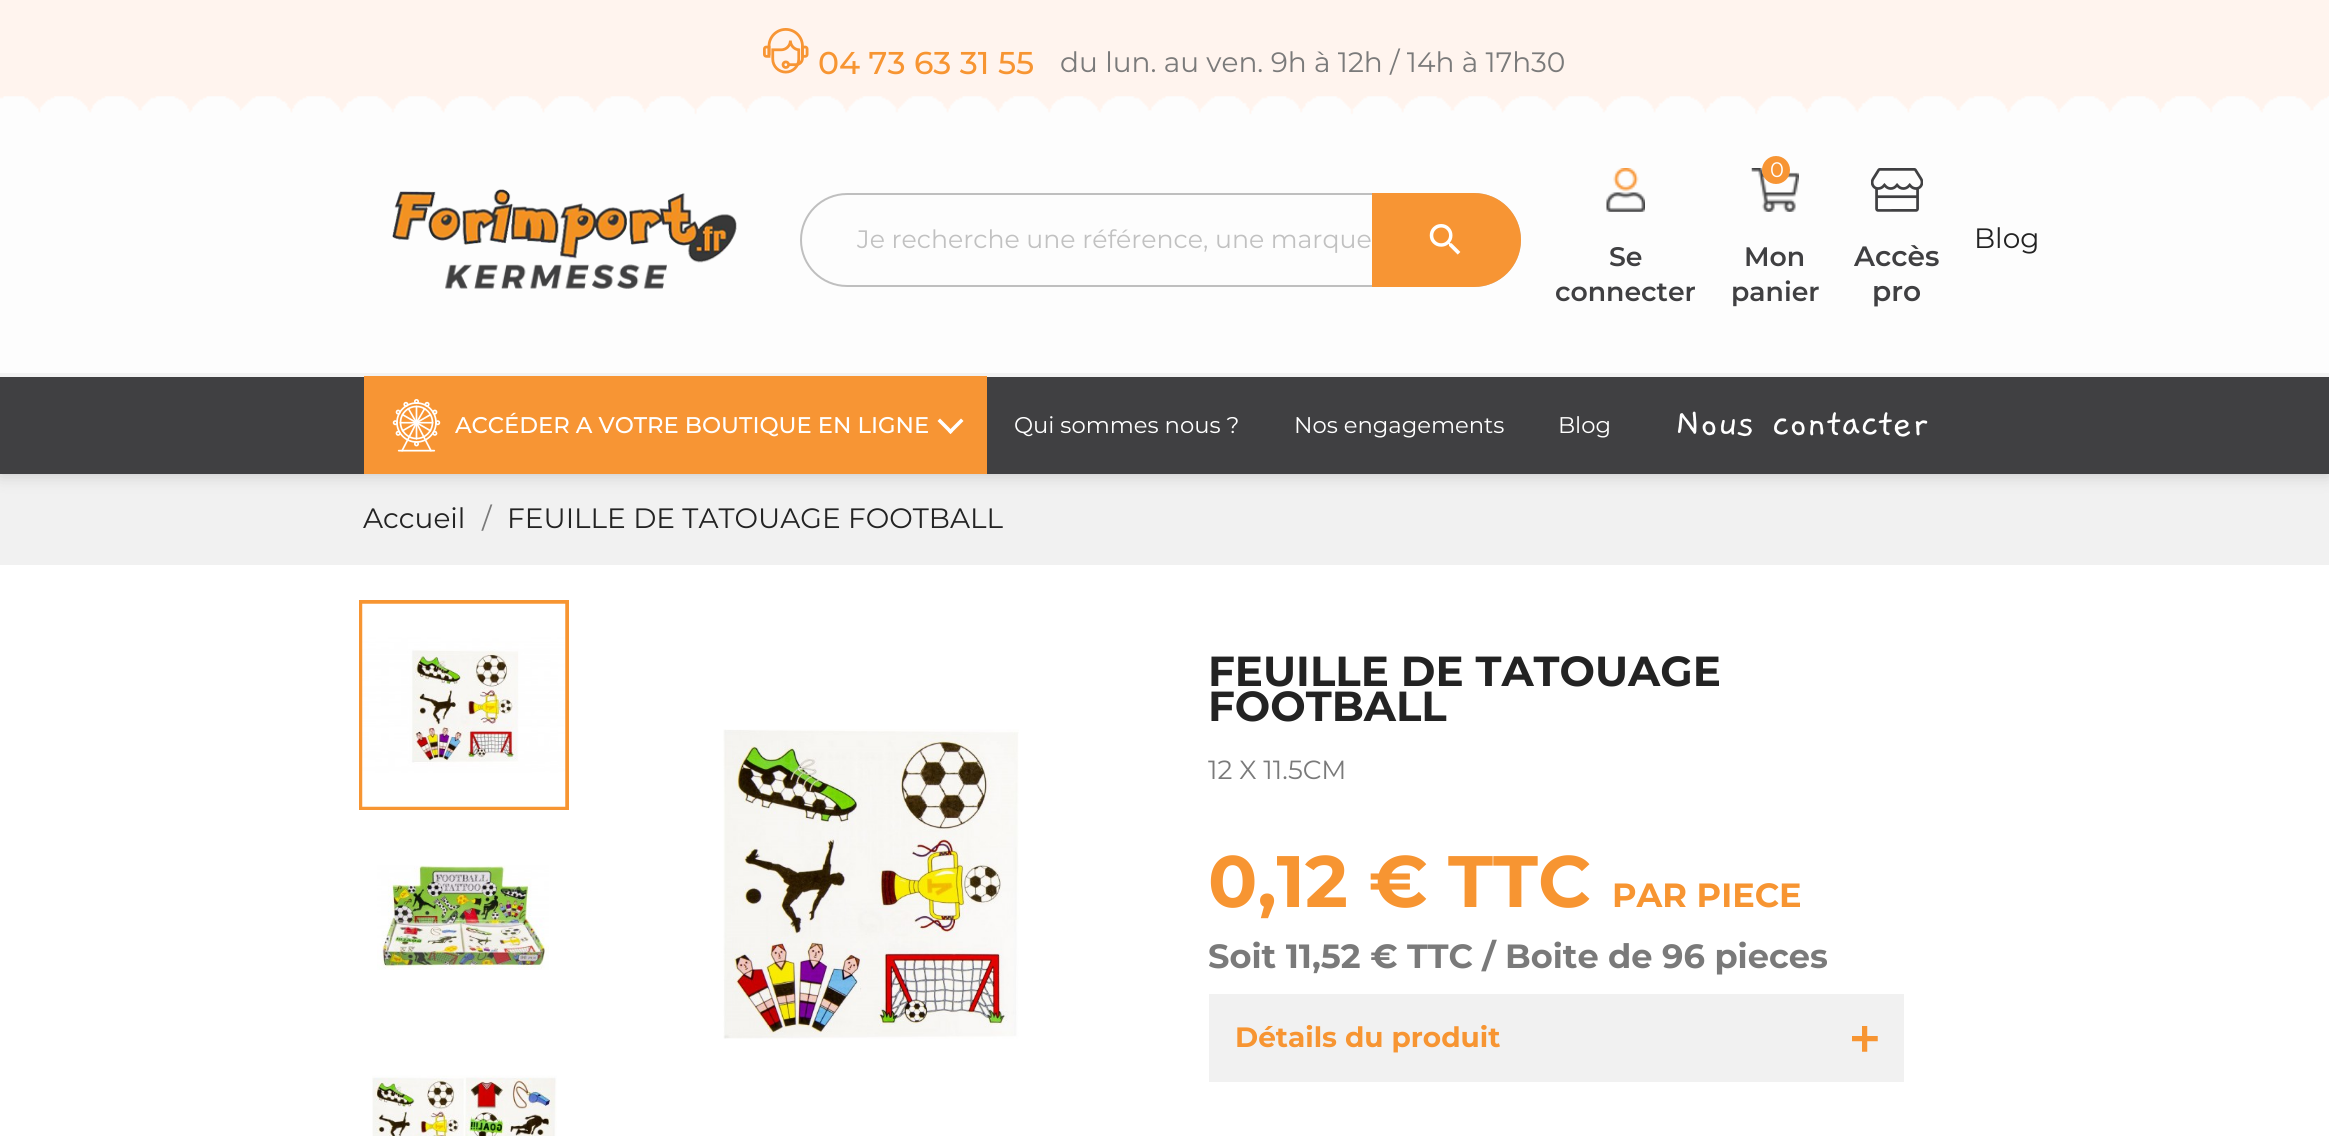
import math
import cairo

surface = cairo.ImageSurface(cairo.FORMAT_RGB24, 2329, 1136)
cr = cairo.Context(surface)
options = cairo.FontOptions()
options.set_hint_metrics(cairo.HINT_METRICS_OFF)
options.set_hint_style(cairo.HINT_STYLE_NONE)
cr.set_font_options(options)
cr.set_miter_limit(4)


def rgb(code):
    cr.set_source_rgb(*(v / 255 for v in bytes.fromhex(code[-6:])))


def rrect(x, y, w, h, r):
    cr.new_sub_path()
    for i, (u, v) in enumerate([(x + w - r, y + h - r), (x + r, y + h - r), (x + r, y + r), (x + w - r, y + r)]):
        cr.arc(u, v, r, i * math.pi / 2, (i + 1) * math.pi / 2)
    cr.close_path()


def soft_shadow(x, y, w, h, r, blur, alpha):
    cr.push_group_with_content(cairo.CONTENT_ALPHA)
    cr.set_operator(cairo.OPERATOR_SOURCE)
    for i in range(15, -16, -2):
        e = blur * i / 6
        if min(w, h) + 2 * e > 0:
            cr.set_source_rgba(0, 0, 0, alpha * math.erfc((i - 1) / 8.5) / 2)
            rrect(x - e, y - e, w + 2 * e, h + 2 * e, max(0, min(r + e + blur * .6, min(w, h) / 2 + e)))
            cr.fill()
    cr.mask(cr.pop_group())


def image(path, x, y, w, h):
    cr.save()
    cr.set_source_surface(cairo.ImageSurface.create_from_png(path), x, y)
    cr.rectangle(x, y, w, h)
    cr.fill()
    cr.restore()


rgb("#f1f1f1")
cr.paint()
rgb("#000000")
soft_shadow(0, 0, 2329, 474, 0, 9, 0.19)
rgb("#fdfdfd")
cr.rectangle(0, 123, 2329, 250)
cr.fill()
rgb("#fff4ee")
cr.rectangle(0, 0, 2329, 115)
cr.fill()
image("img/1.png", 763, 28, 46, 46)
image("img/2.png", 0, 96, 2329, 27)
image("img/3.png", 392, 189, 345, 100)
rrect(801, 194, 719, 92, 46)
rgb("#bfbfbf")
cr.stroke()
rgb("#f79534")
cr.new_path()
cr.move_to(1372, 193)
cr.line_to(1474, 193)
cr.curve_to(1500, 193, 1521, 214, 1521, 240)
cr.curve_to(1521, 266, 1500, 287, 1474, 287)
cr.line_to(1372, 287)
cr.close_path()
cr.fill()
image("img/4.png", 1429, 224, 32, 31)
image("img/5.png", 1751, 168, 48, 44)
cr.arc(1776, 170, 14, 0, 2 * math.pi)
cr.fill()
image("img/6.png", 1606, 168, 39, 44)
image("img/7.png", 1871, 168, 52, 44)
for x, y, w, h, color in [
    (0, 377, 2329, 97, "#404042"),
    (0, 373, 2329, 4, "#f3f3f3"),
    (364, 376, 623, 98, "#f79534"),
]:
    rgb(color)
    cr.rectangle(x, y, w, h)
    cr.fill()
image("img/8.png", 392, 399, 49, 53)
rgb("#ffffff")
cr.new_path()
cr.move_to(961, 418.5)
cr.line_to(963.5, 421)
cr.line_to(950.5, 434)
cr.line_to(948, 431.5)
cr.close_path()
cr.fill()
cr.new_path()
cr.move_to(940, 418.5)
cr.line_to(953, 431.5)
cr.line_to(950.5, 434)
cr.line_to(937.5, 421)
cr.close_path()
cr.fill()
cr.rectangle(0, 565, 2329, 571)
cr.fill()
cr.rectangle(361, 602, 206, 206)
rgb("#f79532")
cr.set_line_width(4)
cr.stroke()
image("img/9.png", 362, 603, 204, 204)
image("img/10.png", 377, 865, 172, 105)
image("img/11.png", 372, 1075, 185, 61)
image("img/12.png", 723, 729, 296, 310)
rgb("#f1f1f1")
cr.rectangle(1209, 994, 695, 88)
cr.fill()
image("img/13.png", 1852, 1026, 26, 26)
cr.select_font_face("Montserrat Medium")
cr.set_font_size(31.5)
rgb("#f79532")
cr.move_to(818, 74)
cr.show_text("04 73 63 31 55")
cr.select_font_face("Montserrat")
cr.set_font_size(28)
rgb("#7a7a7a")
cr.move_to(1060, 72)
cr.show_text("du lun. au ven. 9h à 12h / 14h à 17h30")
cr.set_font_size(25.2)
rgb("#c1c1c1")
cr.move_to(857, 248)
cr.show_text("Je recherche une référence, une marque")
cr.set_font_size(21)
rgb("#ffffff")
cr.move_to(1770, 177)
cr.show_text("0")
cr.select_font_face("Montserrat SemiBold")
cr.set_font_size(26.75)
rgb("#404042")
cr.move_to(1744, 266)
cr.show_text("Mon")
cr.move_to(1731, 301)
cr.show_text("panier")
cr.select_font_face("Montserrat")
cr.set_font_size(28)
rgb("#232323")
cr.move_to(1974, 248)
cr.show_text("Blog")
cr.select_font_face("Montserrat SemiBold")
cr.set_font_size(26.75)
rgb("#404042")
cr.move_to(1609, 266)
cr.show_text("Se")
cr.move_to(1555, 301)
cr.show_text("connecter")
cr.set_font_size(28)
cr.move_to(1854, 266)
cr.show_text("Accès")
cr.move_to(1872, 301)
cr.show_text("pro")
cr.select_font_face("Montserrat Medium")
cr.set_font_size(22.7)
rgb("#ffffff")
cr.move_to(455, 433)
cr.show_text("ACCÉDER A VOTRE BOUTIQUE EN LIGNE")
cr.select_font_face("Montserrat")
for x, y, s in [
    (1014, 433, "Qui sommes nous ?"),
    (1294, 433, "Nos engagements"),
    (1558, 433, "Blog"),
]:
    cr.move_to(x, y)
    cr.show_text(s)
cr.select_font_face("Gaegu")
cr.set_font_size(41.5)
cr.move_to(1675, 435)
cr.show_text("Nous contacter")
cr.select_font_face("Montserrat")
cr.set_font_size(28)
rgb("#232323")
cr.move_to(363, 528)
cr.show_text("Accueil")
rgb("#7a7a7a")
cr.move_to(482, 528)
cr.show_text("/")
rgb("#232323")
cr.move_to(507, 528)
cr.show_text("FEUILLE DE TATOUAGE FOOTBALL")
cr.select_font_face("Montserrat", cairo.FONT_SLANT_NORMAL, cairo.FONT_WEIGHT_BOLD)
cr.set_font_size(42)
cr.move_to(1208, 686)
cr.show_text("FEUILLE DE TATOUAGE")
cr.move_to(1208, 721)
cr.show_text("FOOTBALL")
cr.select_font_face("Montserrat")
cr.set_font_size(26.25)
rgb("#7a7a7a")
cr.move_to(1208, 779)
cr.show_text("12 X 11.5CM")
cr.select_font_face("Montserrat", cairo.FONT_SLANT_NORMAL, cairo.FONT_WEIGHT_BOLD)
cr.set_font_size(72.75)
rgb("#f79532")
cr.move_to(1208, 907)
cr.show_text("0,12 € TTC")
cr.set_font_size(33.6)
cr.move_to(1612, 907)
cr.show_text("PAR PIECE")
rgb("#7a7a7a")
cr.move_to(1208, 968)
cr.show_text("Soit 11,52 € TTC / Boite de 96 pieces")
cr.set_font_size(28)
rgb("#f79532")
cr.move_to(1235, 1047)
cr.show_text("Détails du produit")
surface.write_to_png("page.png")
